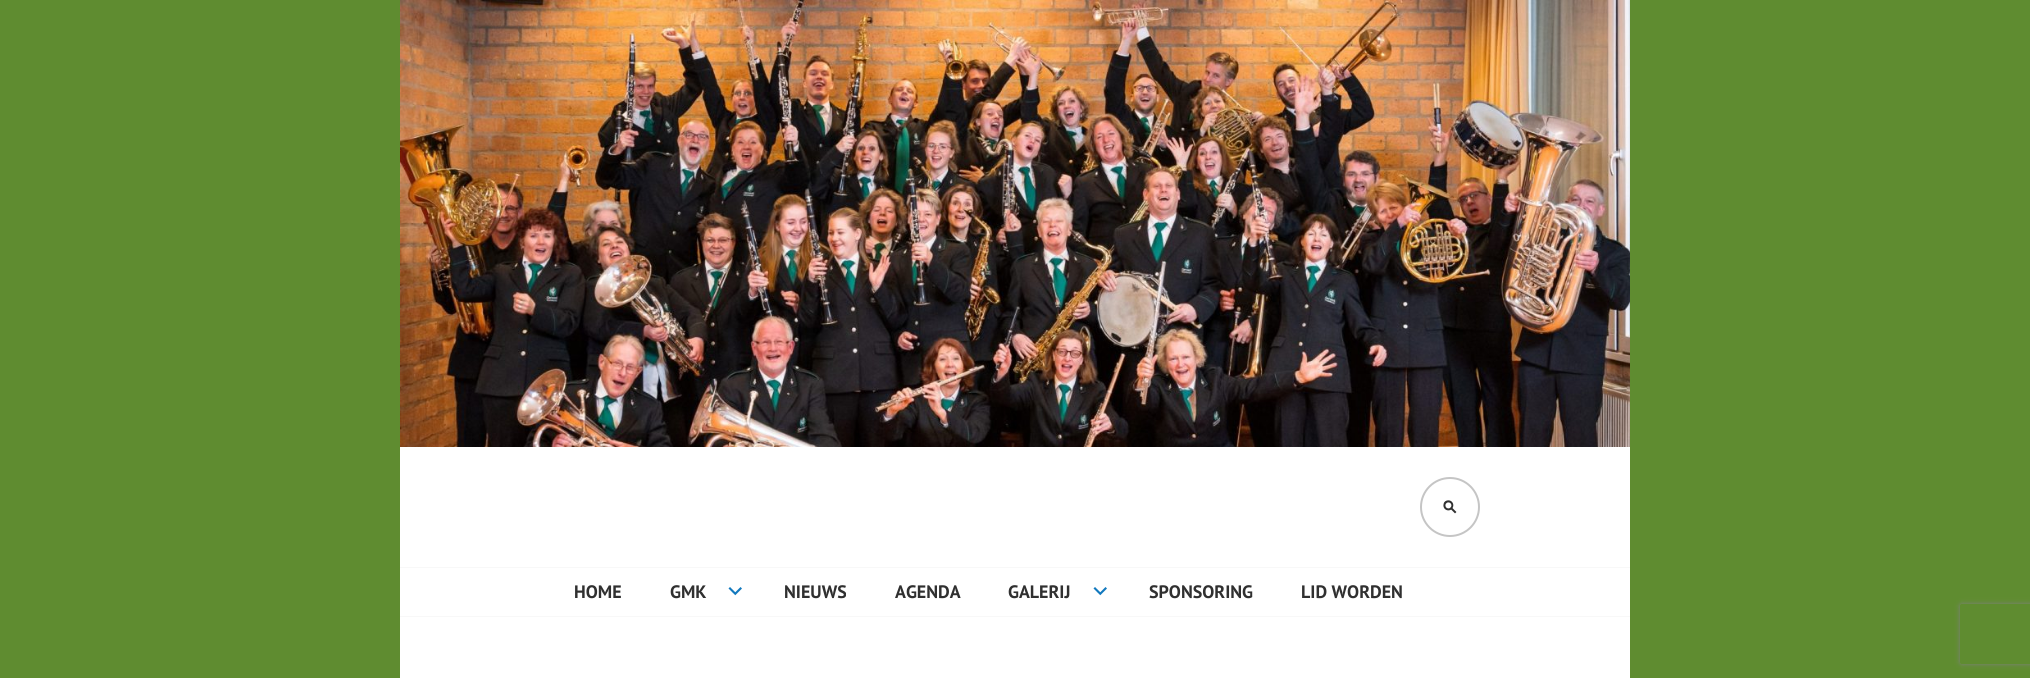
import math
import cairo

surface = cairo.ImageSurface(cairo.FORMAT_RGB24, 2030, 678)
cr = cairo.Context(surface)
options = cairo.FontOptions()
options.set_hint_metrics(cairo.HINT_METRICS_OFF)
options.set_hint_style(cairo.HINT_STYLE_NONE)
cr.set_font_options(options)
cr.set_miter_limit(4)


def rgb(code):
    cr.set_source_rgb(*(v / 255 for v in bytes.fromhex(code[-6:])))


def rrect(x, y, w, h, r):
    cr.new_sub_path()
    for i, (u, v) in enumerate([(x + w - r, y + h - r), (x + r, y + h - r), (x + r, y + r), (x + w - r, y + r)]):
        cr.arc(u, v, r, i * math.pi / 2, (i + 1) * math.pi / 2)
    cr.close_path()


def soft_shadow(x, y, w, h, r, blur, alpha):
    cr.push_group_with_content(cairo.CONTENT_ALPHA)
    cr.set_operator(cairo.OPERATOR_SOURCE)
    for i in range(15, -16, -2):
        e = blur * i / 6
        if min(w, h) + 2 * e > 0:
            cr.set_source_rgba(0, 0, 0, alpha * math.erfc((i - 1) / 8.5) / 2)
            rrect(x - e, y - e, w + 2 * e, h + 2 * e, max(0, min(r + e + blur * .6, min(w, h) / 2 + e)))
            cr.fill()
    cr.mask(cr.pop_group())


def image(path, x, y, w, h):
    cr.save()
    cr.set_source_surface(cairo.ImageSurface.create_from_png(path), x, y)
    cr.rectangle(x, y, w, h)
    cr.fill()
    cr.restore()


rgb("#5f8c30")
cr.paint()
rgb("#ffffff")
cr.rectangle(400, 447, 1230, 169)
cr.fill()
rgb("#f8f8f8")
cr.rectangle(400, 616, 1230, 1)
cr.fill()
image("img/1.png", 400, 0, 1230, 447)
cr.arc(1450, 507, 29, 0, 2 * math.pi)
rgb("#c5c5c5")
cr.stroke()
image("img/2.png", 1443, 500, 14, 14)
rgb("#f8f8f8")
cr.rectangle(400, 567, 1230, 1)
cr.fill()
image("img/3.png", 728, 587, 14, 9)
image("img/3.png", 1093, 587, 14, 9)
rgb("#ffffff")
cr.rectangle(400, 617, 1230, 61)
cr.fill()
cr.save()
cr.set_fill_rule(cairo.FILL_RULE_EVEN_ODD)
cr.new_path()
cr.move_to(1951, 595)
cr.line_to(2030, 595)
cr.line_to(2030, 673)
cr.line_to(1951, 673)
cr.close_path()
cr.move_to(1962, 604)
cr.line_to(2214, 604)
cr.curve_to(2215, 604, 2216, 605, 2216, 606)
cr.line_to(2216, 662)
cr.curve_to(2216, 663, 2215, 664, 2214, 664)
cr.line_to(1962, 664)
cr.curve_to(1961, 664, 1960, 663, 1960, 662)
cr.line_to(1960, 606)
cr.curve_to(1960, 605, 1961, 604, 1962, 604)
cr.close_path()
cr.clip()
rgb("#808080")
soft_shadow(1960, 604, 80, 60, 2, 2.5, 1)
cr.restore()
cr.select_font_face("PT Sans", cairo.FONT_SLANT_NORMAL, cairo.FONT_WEIGHT_BOLD)
cr.set_font_size(18)
rgb("#303030")
for x, y, s in [
    (574, 598, "HOME"),
    (670, 598, "GMK"),
    (784, 598, "NIEUWS"),
    (895, 598, "AGENDA"),
    (1008, 598, "GALERIJ"),
    (1149, 598, "SPONSORING"),
    (1301, 598, "LID WORDEN"),
]:
    cr.move_to(x, y)
    cr.show_text(s)
surface.write_to_png("page.png")
